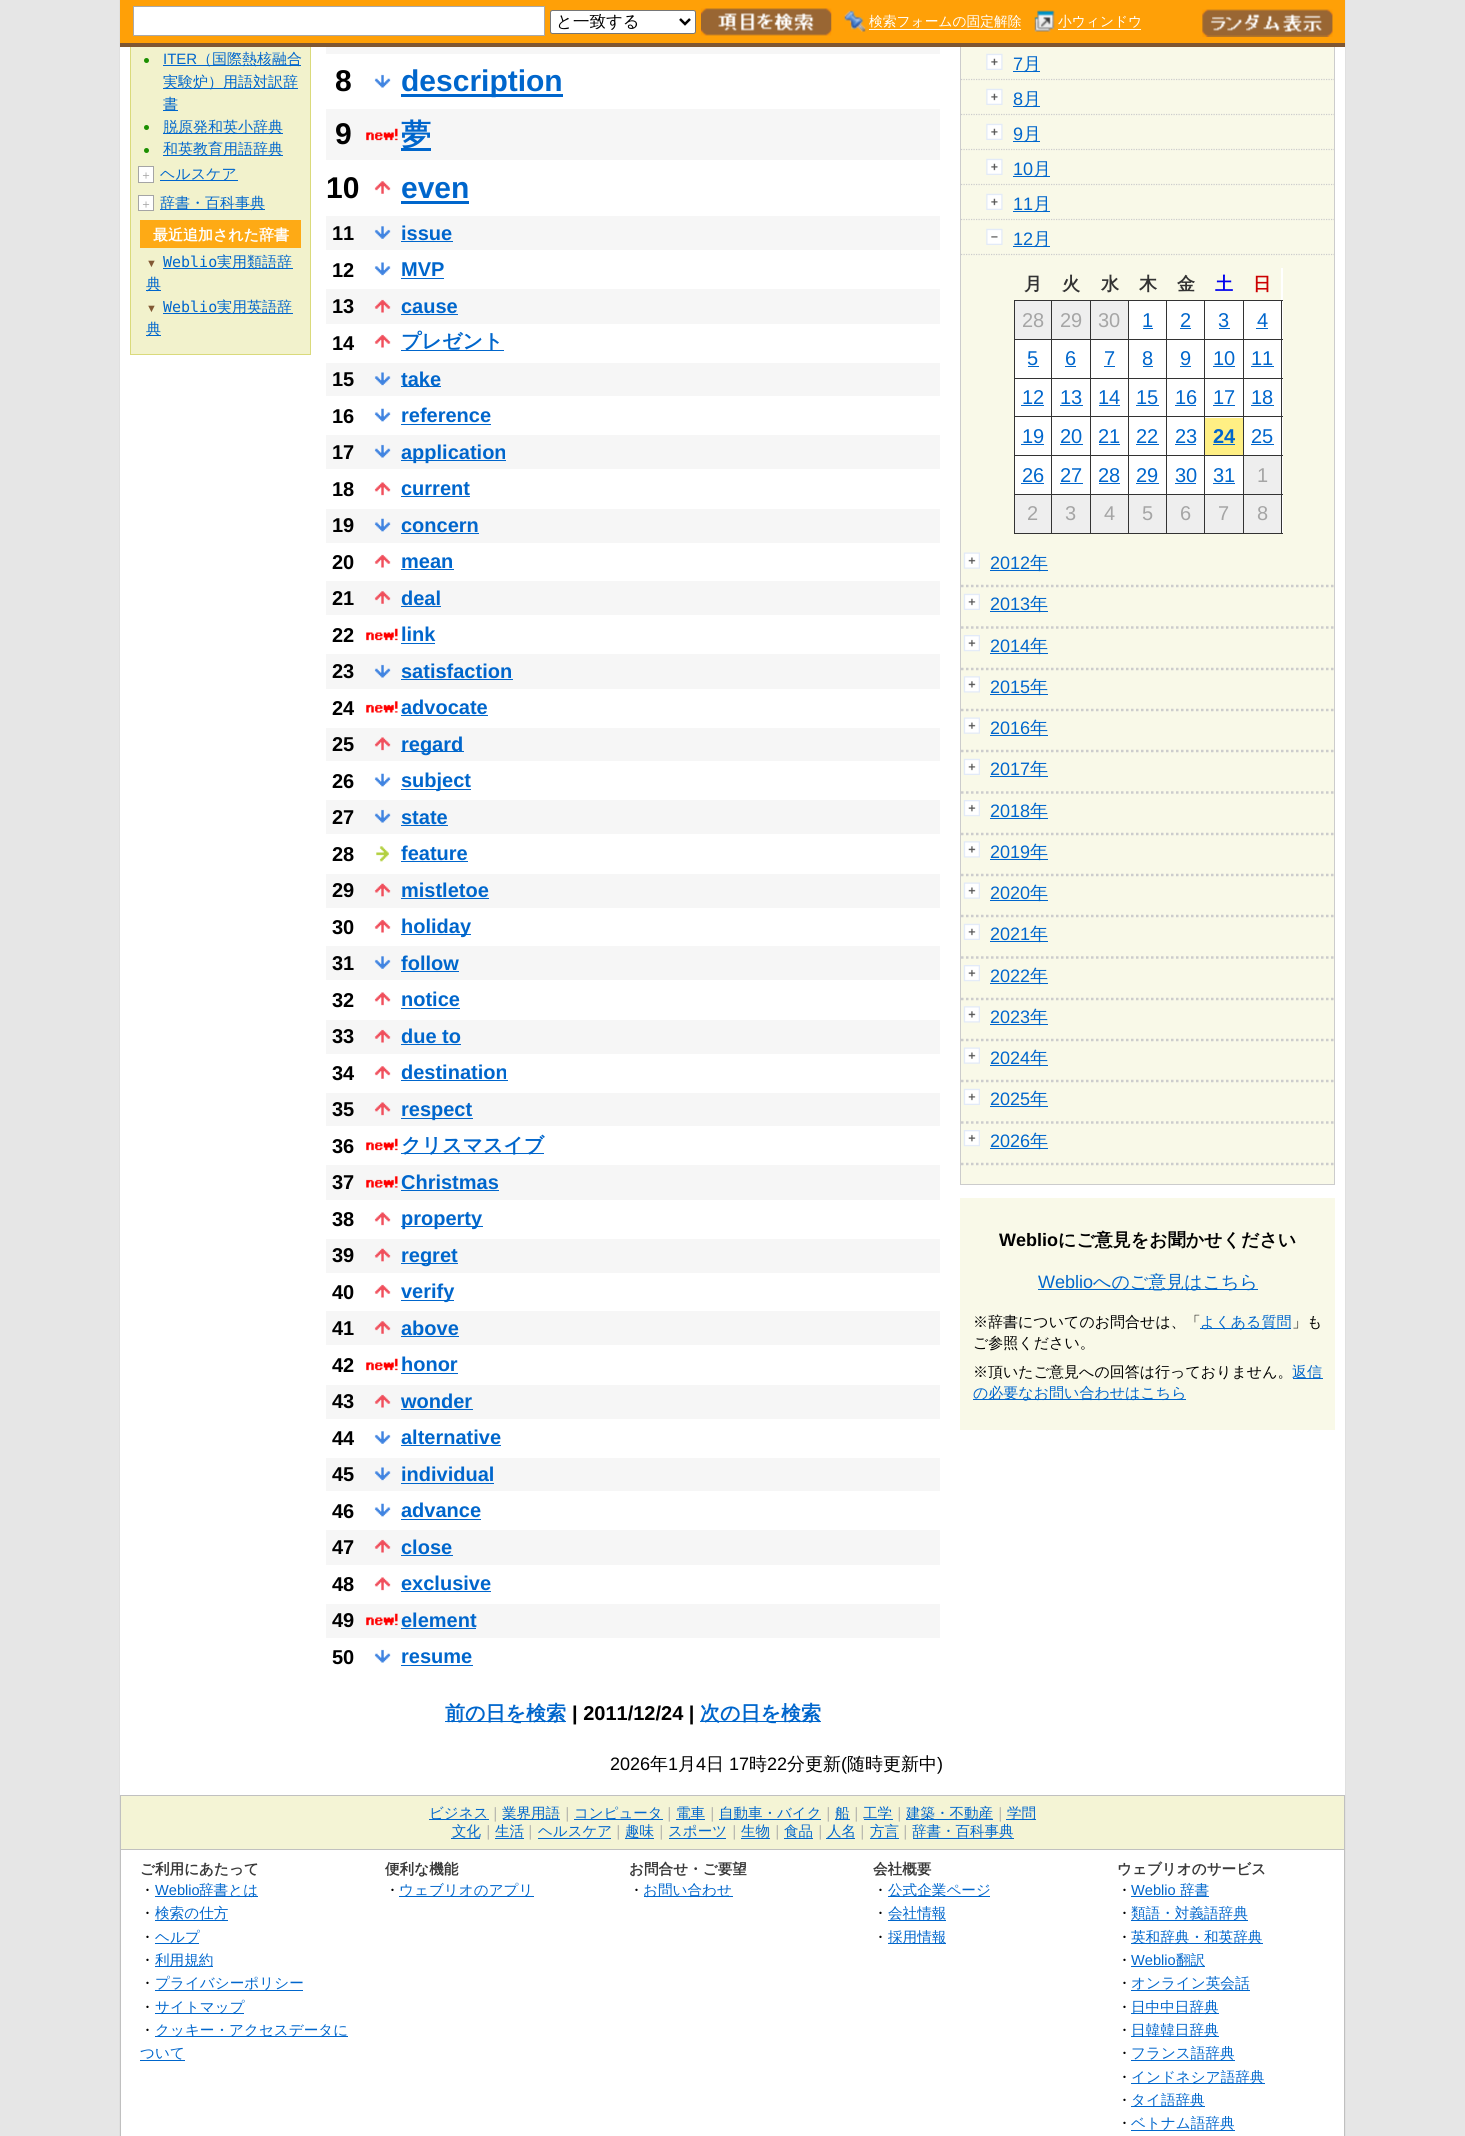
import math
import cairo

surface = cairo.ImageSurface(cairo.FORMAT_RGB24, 1465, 2136)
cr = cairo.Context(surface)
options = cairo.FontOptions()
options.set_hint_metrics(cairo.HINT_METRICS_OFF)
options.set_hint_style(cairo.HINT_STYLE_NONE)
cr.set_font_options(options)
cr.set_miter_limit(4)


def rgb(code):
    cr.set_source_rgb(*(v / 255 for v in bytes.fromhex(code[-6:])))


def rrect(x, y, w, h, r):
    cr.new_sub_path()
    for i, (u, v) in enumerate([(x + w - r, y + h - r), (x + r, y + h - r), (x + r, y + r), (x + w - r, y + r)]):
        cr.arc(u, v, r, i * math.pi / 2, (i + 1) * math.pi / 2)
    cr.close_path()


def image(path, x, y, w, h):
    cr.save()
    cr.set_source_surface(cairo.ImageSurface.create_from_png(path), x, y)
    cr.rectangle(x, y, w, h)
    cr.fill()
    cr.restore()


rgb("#e6e6e6")
cr.paint()
for x, y, w, h, color in [
    (120, 47, 1225, 2089, "#ffffff"),
    (1345, 0, 1, 2136, "#e0e0e0"),
    (119, 0, 1, 2136, "#e0e0e0"),
    (120, 0, 1225, 43, "#ffa007"),
    (120, 43, 1225, 4, "#7e5632"),
    (134, 7, 410, 28, "#ffffff"),
    (133, 6, 412, 1, "#a9a9a9"),
    (544, 6, 1, 30, "#a9a9a9"),
    (133, 35, 412, 1, "#a9a9a9"),
    (133, 6, 1, 30, "#a9a9a9"),
]:
    rgb(color)
    cr.rectangle(x, y, w, h)
    cr.fill()
rgb("#ffffff")
rrect(550.5, 10.5, 145, 23, 2)
cr.fill_preserve()
rgb("#767676")
cr.set_line_width(1)
cr.stroke()
cr.new_path()
cr.move_to(680, 19)
cr.line_to(685, 24)
cr.line_to(690, 19)
rgb("#000000")
cr.set_line_width(2.5)
cr.stroke()
image("img/1.png", 701, 8, 131, 28)
image("img/2.png", 844, 10, 22, 22)
rgb("#ffffff")
cr.rectangle(869, 29, 152, 1)
cr.fill()
image("img/3.png", 1034, 10, 21, 22)
cr.rectangle(1058, 29, 83, 1)
cr.fill()
image("img/4.png", 1202, 9, 131, 28)
for x, y, w, h, color in [
    (131, 47, 179, 307, "#f2f2cc"),
    (310, 47, 1, 308, "#dada7b"),
    (130, 47, 1, 301, "#dada7b"),
]:
    rgb(color)
    cr.rectangle(x, y, w, h)
    cr.fill()
rgb("#1c9000")
cr.arc(146.5, 60.5, 2.5, 0, 2 * math.pi)
cr.fill()
for x, y, w, h, color in [
    (163, 65, 138, 1, "#0066cc"),
    (163, 88, 135, 1, "#0066cc"),
    (163, 110, 15, 1, "#0066cc"),
]:
    rgb(color)
    cr.rectangle(x, y, w, h)
    cr.fill()
rgb("#1c9000")
cr.arc(146.5, 127.5, 2.5, 0, 2 * math.pi)
cr.fill()
rgb("#0066cc")
cr.rectangle(163, 133, 120, 1)
cr.fill()
rgb("#1c9000")
cr.arc(146.5, 150.5, 2.5, 0, 2 * math.pi)
cr.fill()
rgb("#0066cc")
cr.rectangle(163, 155, 120, 1)
cr.fill()
rgb("#ffffff")
cr.rectangle(138.5, 166.5, 15, 16)
cr.fill_preserve()
rgb("#a5a5a5")
cr.set_line_width(1)
cr.stroke()
rgb("#0066cc")
cr.rectangle(160, 180, 78, 1)
cr.fill()
rgb("#ffffff")
cr.rectangle(138.5, 195.5, 15, 15)
cr.fill_preserve()
rgb("#a5a5a5")
cr.stroke()
for x, y, w, h, color in [
    (160, 209, 105, 1, "#0066cc"),
    (140, 220, 161, 28, "#feaa15"),
    (163, 268, 130, 1, "#0066cc"),
    (146, 290, 15, 1, "#0066cc"),
    (163, 313, 130, 1, "#0066cc"),
    (146, 335, 15, 1, "#0066cc"),
    (130, 354, 181, 1, "#dada7b"),
    (130, 340, 1, 15, "#dada7b"),
    (326, 47, 614, 7, "#f6f6f6"),
]:
    rgb(color)
    cr.rectangle(x, y, w, h)
    cr.fill()
image("img/5.png", 374, 74, 17, 14)
rgb("#0066cc")
cr.rectangle(401, 94, 162, 3)
cr.fill()
rgb("#f6f6f6")
cr.rectangle(326, 109, 614, 51)
cr.fill()
image("img/6.png", 366, 128, 32, 13)
rgb("#0066cc")
cr.rectangle(401, 148, 30, 3)
cr.fill()
image("img/7.png", 374, 181, 17, 13)
cr.rectangle(401, 201, 68, 3)
cr.fill()
rgb("#f6f6f6")
cr.rectangle(326, 216, 614, 34)
cr.fill()
image("img/8.png", 374, 226, 17, 13)
rgb("#0066cc")
cr.rectangle(401, 241, 52, 1)
cr.fill()
image("img/9.png", 374, 262, 17, 14)
cr.rectangle(401, 278, 43, 1)
cr.fill()
rgb("#f6f6f6")
cr.rectangle(326, 289, 614, 35)
cr.fill()
image("img/10.png", 374, 299, 17, 14)
rgb("#0066cc")
cr.rectangle(401, 314, 57, 1)
cr.fill()
image("img/11.png", 374, 334, 17, 14)
cr.rectangle(401, 350, 103, 1)
cr.fill()
rgb("#f6f6f6")
cr.rectangle(326, 363, 614, 33)
cr.fill()
image("img/12.png", 374, 372, 17, 14)
rgb("#0066cc")
cr.rectangle(401, 386, 40, 1)
cr.fill()
image("img/13.png", 374, 408, 17, 14)
cr.rectangle(401, 424, 90, 1)
cr.fill()
rgb("#f6f6f6")
cr.rectangle(326, 435, 614, 34)
cr.fill()
image("img/14.png", 374, 444, 17, 14)
rgb("#0066cc")
cr.rectangle(401, 460, 105, 1)
cr.fill()
image("img/15.png", 374, 482, 17, 14)
cr.rectangle(401, 496, 69, 1)
cr.fill()
rgb("#f6f6f6")
cr.rectangle(326, 509, 614, 34)
cr.fill()
image("img/16.png", 374, 518, 17, 14)
rgb("#0066cc")
cr.rectangle(401, 533, 78, 1)
cr.fill()
image("img/11.png", 374, 554, 17, 14)
cr.rectangle(401, 569, 53, 1)
cr.fill()
rgb("#f6f6f6")
cr.rectangle(326, 581, 614, 34)
cr.fill()
image("img/17.png", 374, 591, 17, 13)
rgb("#0066cc")
cr.rectangle(401, 606, 40, 1)
cr.fill()
image("img/18.png", 366, 628, 32, 13)
cr.rectangle(401, 643, 34, 1)
cr.fill()
rgb("#f6f6f6")
cr.rectangle(326, 654, 614, 35)
cr.fill()
image("img/14.png", 374, 664, 17, 14)
rgb("#0066cc")
cr.rectangle(401, 679, 112, 1)
cr.fill()
image("img/19.png", 366, 701, 32, 12)
cr.rectangle(401, 715, 87, 1)
cr.fill()
rgb("#f6f6f6")
cr.rectangle(326, 728, 614, 33)
cr.fill()
image("img/20.png", 374, 737, 17, 14)
rgb("#0066cc")
cr.rectangle(401, 751, 63, 1)
cr.fill()
image("img/13.png", 374, 773, 17, 14)
cr.rectangle(401, 789, 70, 1)
cr.fill()
rgb("#f6f6f6")
cr.rectangle(326, 800, 614, 34)
cr.fill()
image("img/14.png", 374, 809, 17, 14)
rgb("#0066cc")
cr.rectangle(401, 825, 47, 1)
cr.fill()
image("img/21.png", 376, 846, 13, 16)
cr.rectangle(401, 861, 67, 1)
cr.fill()
rgb("#f6f6f6")
cr.rectangle(326, 874, 614, 34)
cr.fill()
image("img/22.png", 374, 883, 17, 14)
rgb("#0066cc")
cr.rectangle(401, 898, 88, 1)
cr.fill()
image("img/11.png", 374, 919, 17, 14)
cr.rectangle(401, 934, 70, 1)
cr.fill()
rgb("#f6f6f6")
cr.rectangle(326, 946, 614, 34)
cr.fill()
image("img/8.png", 374, 956, 17, 13)
rgb("#0066cc")
cr.rectangle(401, 971, 58, 1)
cr.fill()
image("img/15.png", 374, 992, 17, 14)
cr.rectangle(401, 1008, 59, 1)
cr.fill()
rgb("#f6f6f6")
cr.rectangle(326, 1020, 614, 34)
cr.fill()
image("img/10.png", 374, 1029, 17, 14)
rgb("#0066cc")
cr.rectangle(401, 1044, 60, 1)
cr.fill()
image("img/23.png", 374, 1066, 17, 13)
cr.rectangle(401, 1080, 107, 1)
cr.fill()
rgb("#f6f6f6")
cr.rectangle(326, 1093, 614, 33)
cr.fill()
image("img/20.png", 374, 1102, 17, 14)
rgb("#0066cc")
cr.rectangle(401, 1118, 72, 1)
cr.fill()
image("img/18.png", 366, 1138, 32, 13)
cr.rectangle(401, 1153, 143, 1)
cr.fill()
rgb("#f6f6f6")
cr.rectangle(326, 1165, 614, 35)
cr.fill()
image("img/24.png", 366, 1176, 32, 12)
rgb("#0066cc")
cr.rectangle(401, 1190, 98, 1)
cr.fill()
image("img/15.png", 374, 1212, 17, 14)
cr.rectangle(401, 1226, 82, 1)
cr.fill()
rgb("#f6f6f6")
cr.rectangle(326, 1239, 614, 34)
cr.fill()
image("img/22.png", 374, 1248, 17, 14)
rgb("#0066cc")
cr.rectangle(401, 1263, 57, 1)
cr.fill()
image("img/11.png", 374, 1284, 17, 14)
cr.rectangle(401, 1300, 53, 1)
cr.fill()
rgb("#f6f6f6")
cr.rectangle(326, 1311, 614, 34)
cr.fill()
image("img/17.png", 374, 1321, 17, 13)
rgb("#0066cc")
cr.rectangle(401, 1336, 58, 1)
cr.fill()
image("img/18.png", 366, 1358, 32, 13)
cr.rectangle(401, 1373, 57, 1)
cr.fill()
rgb("#f6f6f6")
cr.rectangle(326, 1385, 614, 34)
cr.fill()
image("img/10.png", 374, 1394, 17, 14)
rgb("#0066cc")
cr.rectangle(401, 1409, 72, 1)
cr.fill()
image("img/25.png", 374, 1431, 17, 13)
cr.rectangle(401, 1445, 100, 1)
cr.fill()
rgb("#f6f6f6")
cr.rectangle(326, 1458, 614, 33)
cr.fill()
image("img/12.png", 374, 1467, 17, 14)
rgb("#0066cc")
cr.rectangle(401, 1483, 93, 1)
cr.fill()
image("img/13.png", 374, 1503, 17, 14)
cr.rectangle(401, 1519, 80, 1)
cr.fill()
rgb("#f6f6f6")
cr.rectangle(326, 1530, 614, 35)
cr.fill()
image("img/10.png", 374, 1539, 17, 14)
rgb("#0066cc")
cr.rectangle(401, 1555, 52, 1)
cr.fill()
image("img/15.png", 374, 1577, 17, 14)
cr.rectangle(401, 1591, 90, 1)
cr.fill()
rgb("#f6f6f6")
cr.rectangle(326, 1604, 614, 34)
cr.fill()
image("img/6.png", 366, 1613, 32, 13)
rgb("#0066cc")
cr.rectangle(401, 1628, 75, 1)
cr.fill()
image("img/5.png", 374, 1649, 17, 14)
for x, y, w, h, color in [
    (401, 1665, 72, 1, "#0066cc"),
    (445, 1721, 121, 1, "#0066cc"),
    (700, 1721, 121, 1, "#0066cc"),
    (961, 47, 373, 1137, "#f9f9e8"),
    (1334, 47, 1, 1138, "#cccccc"),
    (960, 1184, 375, 1, "#cccccc"),
    (960, 47, 1, 1138, "#cccccc"),
]:
    rgb(color)
    cr.rectangle(x, y, w, h)
    cr.fill()
cr.new_path()
cr.move_to(961, 79.5)
cr.line_to(1334, 79.5)
cr.set_line_width(1.2)
cr.set_dash([1.25, 1.25])
cr.stroke()
image("img/26.png", 986, 53, 17, 17)
rgb("#0066cc")
cr.rectangle(1013, 71, 27, 1)
cr.fill()
cr.new_path()
cr.move_to(961, 114.5)
cr.line_to(1334, 114.5)
rgb("#cccccc")
cr.stroke()
image("img/26.png", 986, 88, 17, 17)
rgb("#0066cc")
cr.rectangle(1013, 106, 27, 1)
cr.fill()
cr.new_path()
cr.move_to(961, 149.5)
cr.line_to(1334, 149.5)
rgb("#cccccc")
cr.stroke()
image("img/26.png", 986, 123, 17, 17)
rgb("#0066cc")
cr.rectangle(1013, 141, 27, 1)
cr.fill()
cr.new_path()
cr.move_to(961, 184.5)
cr.line_to(1334, 184.5)
rgb("#cccccc")
cr.stroke()
image("img/26.png", 986, 158, 17, 17)
rgb("#0066cc")
cr.rectangle(1013, 176, 37, 1)
cr.fill()
cr.new_path()
cr.move_to(961, 219.5)
cr.line_to(1334, 219.5)
rgb("#cccccc")
cr.stroke()
image("img/26.png", 986, 193, 17, 17)
rgb("#0066cc")
cr.rectangle(1013, 211, 37, 1)
cr.fill()
cr.new_path()
cr.move_to(961, 254.5)
cr.line_to(1334, 254.5)
rgb("#cccccc")
cr.stroke()
image("img/27.png", 986, 228, 17, 17)
for x, y, w, h, color in [
    (1013, 246, 37, 1, "#0066cc"),
    (1015, 268, 268, 265, "#ffffff"),
    (1015, 268, 266, 32, "#f9f9e8"),
    (1015, 301, 75, 38, "#eeeeee"),
    (1243, 300, 40, 1, "#333333"),
    (1243, 339, 40, 1, "#333333"),
    (1243, 378, 40, 1, "#333333"),
    (1243, 416, 40, 1, "#333333"),
    (1243, 455, 40, 1, "#333333"),
    (1243, 494, 40, 1, "#333333"),
    (1281, 494, 1, 40, "#333333"),
    (1243, 533, 40, 1, "#333333"),
    (1243, 494, 1, 40, "#333333"),
    (1204, 494, 40, 1, "#333333"),
    (1243, 455, 1, 40, "#333333"),
    (1204, 455, 40, 1, "#333333"),
    (1243, 416, 1, 40, "#333333"),
    (1204, 416, 40, 1, "#333333"),
    (1243, 378, 1, 40, "#333333"),
    (1204, 378, 40, 1, "#333333"),
    (1243, 339, 1, 40, "#333333"),
    (1204, 339, 40, 1, "#333333"),
    (1243, 300, 1, 40, "#333333"),
    (1204, 300, 40, 1, "#333333"),
    (1204, 533, 40, 1, "#333333"),
    (1204, 494, 1, 40, "#333333"),
    (1166, 494, 39, 1, "#333333"),
    (1204, 455, 1, 40, "#333333"),
    (1166, 455, 39, 1, "#333333"),
    (1204, 416, 1, 40, "#333333"),
    (1166, 416, 39, 1, "#333333"),
    (1204, 378, 1, 40, "#333333"),
    (1166, 378, 39, 1, "#333333"),
    (1204, 339, 1, 40, "#333333"),
    (1166, 339, 39, 1, "#333333"),
    (1204, 300, 1, 40, "#333333"),
    (1166, 300, 39, 1, "#333333"),
    (1166, 533, 39, 1, "#333333"),
    (1166, 494, 1, 40, "#333333"),
    (1128, 494, 40, 1, "#333333"),
    (1166, 455, 1, 40, "#333333"),
    (1128, 455, 40, 1, "#333333"),
    (1166, 416, 1, 40, "#333333"),
    (1128, 416, 40, 1, "#333333"),
    (1166, 378, 1, 40, "#333333"),
    (1128, 378, 40, 1, "#333333"),
    (1166, 339, 1, 40, "#333333"),
    (1128, 339, 40, 1, "#333333"),
    (1166, 300, 1, 40, "#333333"),
    (1128, 300, 40, 1, "#333333"),
    (1128, 533, 40, 1, "#333333"),
    (1128, 494, 1, 40, "#333333"),
    (1090, 494, 39, 1, "#333333"),
    (1128, 455, 1, 40, "#333333"),
    (1090, 455, 39, 1, "#333333"),
    (1128, 416, 1, 40, "#333333"),
    (1090, 416, 39, 1, "#333333"),
    (1128, 378, 1, 40, "#333333"),
    (1090, 378, 39, 1, "#333333"),
    (1128, 339, 1, 40, "#333333"),
    (1090, 339, 39, 1, "#333333"),
    (1128, 300, 1, 40, "#333333"),
    (1090, 300, 39, 1, "#333333"),
    (1090, 533, 39, 1, "#333333"),
    (1090, 494, 1, 40, "#333333"),
    (1051, 494, 40, 1, "#333333"),
    (1090, 455, 1, 40, "#333333"),
    (1051, 455, 40, 1, "#333333"),
    (1090, 416, 1, 40, "#333333"),
    (1051, 416, 40, 1, "#333333"),
    (1090, 378, 1, 40, "#333333"),
    (1051, 378, 40, 1, "#333333"),
    (1090, 339, 1, 40, "#333333"),
    (1051, 339, 40, 1, "#333333"),
    (1090, 300, 1, 40, "#333333"),
    (1051, 300, 40, 1, "#333333"),
    (1015, 495, 75, 38, "#eeeeee"),
    (1051, 533, 40, 1, "#333333"),
    (1051, 494, 1, 40, "#333333"),
    (1014, 494, 39, 1, "#333333"),
    (1051, 455, 1, 40, "#333333"),
    (1014, 455, 39, 1, "#333333"),
    (1051, 416, 1, 40, "#333333"),
    (1014, 416, 39, 1, "#333333"),
    (1051, 378, 1, 40, "#333333"),
    (1014, 378, 39, 1, "#333333"),
    (1051, 339, 1, 40, "#333333"),
    (1014, 339, 39, 1, "#333333"),
    (1051, 300, 1, 40, "#333333"),
    (1014, 300, 39, 1, "#333333"),
    (1014, 533, 39, 1, "#333333"),
    (1014, 494, 1, 40, "#333333"),
    (1014, 455, 1, 40, "#333333"),
    (1014, 416, 1, 40, "#333333"),
    (1014, 378, 1, 40, "#333333"),
    (1014, 339, 1, 40, "#333333"),
    (1014, 300, 1, 40, "#333333"),
    (1091, 301, 37, 38, "#eeeeee"),
    (1143, 328, 10, 1, "#0066cc"),
    (1180, 328, 11, 1, "#0066cc"),
    (1219, 328, 11, 1, "#0066cc"),
    (1281, 455, 1, 40, "#333333"),
    (1281, 416, 1, 40, "#333333"),
    (1281, 378, 1, 40, "#333333"),
    (1281, 339, 1, 40, "#333333"),
    (1281, 300, 1, 40, "#333333"),
    (1256, 328, 12, 1, "#0066cc"),
    (1028, 366, 11, 1, "#0066cc"),
    (1065, 366, 11, 1, "#0066cc"),
    (1104, 366, 11, 1, "#0066cc"),
    (1143, 366, 10, 1, "#0066cc"),
    (1180, 366, 11, 1, "#0066cc"),
    (1213, 366, 22, 1, "#0066cc"),
    (1251, 366, 23, 1, "#0066cc"),
    (1021, 405, 23, 1, "#0066cc"),
    (1060, 405, 23, 1, "#0066cc"),
    (1099, 405, 21, 1, "#0066cc"),
    (1136, 405, 23, 1, "#0066cc"),
    (1175, 405, 21, 1, "#0066cc"),
    (1213, 405, 22, 1, "#0066cc"),
    (1251, 405, 23, 1, "#0066cc"),
    (1021, 444, 23, 1, "#0066cc"),
    (1060, 444, 23, 1, "#0066cc"),
    (1099, 444, 21, 1, "#0066cc"),
    (1136, 444, 23, 1, "#0066cc"),
    (1175, 444, 21, 1, "#0066cc"),
    (1205, 418, 38, 37, "#ffef84"),
    (1213, 444, 22, 1, "#0066cc"),
    (1251, 444, 23, 1, "#0066cc"),
    (1021, 483, 23, 1, "#0066cc"),
    (1060, 483, 23, 1, "#0066cc"),
    (1099, 483, 21, 1, "#0066cc"),
    (1136, 483, 23, 1, "#0066cc"),
    (1175, 483, 21, 1, "#0066cc"),
    (1213, 483, 22, 1, "#0066cc"),
    (1244, 456, 37, 38, "#eeeeee"),
    (1091, 495, 37, 38, "#eeeeee"),
    (1129, 495, 37, 38, "#eeeeee"),
    (1167, 495, 37, 38, "#eeeeee"),
    (1205, 495, 38, 38, "#eeeeee"),
    (1244, 495, 37, 38, "#eeeeee"),
]:
    rgb(color)
    cr.rectangle(x, y, w, h)
    cr.fill()
cr.new_path()
cr.move_to(961, 586)
cr.line_to(1334, 586)
rgb("#cccccc")
cr.set_line_width(2.5)
cr.set_dash([2.5, 2.5])
cr.stroke()
image("img/28.png", 963, 552, 17, 17)
rgb("#0066cc")
cr.rectangle(990, 570, 58, 1)
cr.fill()
cr.new_path()
cr.move_to(961, 627.5)
cr.line_to(1334, 627.5)
rgb("#cccccc")
cr.stroke()
image("img/29.png", 963, 593, 17, 17)
rgb("#0066cc")
cr.rectangle(990, 611, 58, 1)
cr.fill()
cr.new_path()
cr.move_to(961, 669)
cr.line_to(1334, 669)
rgb("#cccccc")
cr.stroke()
image("img/30.png", 963, 635, 17, 17)
rgb("#0066cc")
cr.rectangle(990, 653, 58, 1)
cr.fill()
cr.new_path()
cr.move_to(961, 710)
cr.line_to(1334, 710)
rgb("#cccccc")
cr.stroke()
image("img/31.png", 963, 676, 17, 17)
rgb("#0066cc")
cr.rectangle(990, 694, 58, 1)
cr.fill()
cr.new_path()
cr.move_to(961, 751)
cr.line_to(1334, 751)
rgb("#cccccc")
cr.stroke()
image("img/32.png", 963, 717, 17, 17)
rgb("#0066cc")
cr.rectangle(990, 735, 58, 1)
cr.fill()
cr.new_path()
cr.move_to(961, 792.5)
cr.line_to(1334, 792.5)
rgb("#cccccc")
cr.stroke()
image("img/29.png", 963, 758, 17, 17)
rgb("#0066cc")
cr.rectangle(990, 776, 58, 1)
cr.fill()
cr.new_path()
cr.move_to(961, 834)
cr.line_to(1334, 834)
rgb("#cccccc")
cr.stroke()
image("img/30.png", 963, 800, 17, 17)
rgb("#0066cc")
cr.rectangle(990, 818, 58, 1)
cr.fill()
cr.new_path()
cr.move_to(961, 875)
cr.line_to(1334, 875)
rgb("#cccccc")
cr.stroke()
image("img/31.png", 963, 841, 17, 17)
rgb("#0066cc")
cr.rectangle(990, 859, 58, 1)
cr.fill()
cr.new_path()
cr.move_to(961, 916)
cr.line_to(1334, 916)
rgb("#cccccc")
cr.stroke()
image("img/28.png", 963, 882, 17, 17)
rgb("#0066cc")
cr.rectangle(990, 900, 58, 1)
cr.fill()
cr.new_path()
cr.move_to(961, 957.5)
cr.line_to(1334, 957.5)
rgb("#cccccc")
cr.stroke()
image("img/29.png", 963, 923, 17, 17)
rgb("#0066cc")
cr.rectangle(990, 941, 58, 1)
cr.fill()
cr.new_path()
cr.move_to(961, 999)
cr.line_to(1334, 999)
rgb("#cccccc")
cr.stroke()
image("img/30.png", 963, 965, 17, 17)
rgb("#0066cc")
cr.rectangle(990, 983, 58, 1)
cr.fill()
cr.new_path()
cr.move_to(961, 1040)
cr.line_to(1334, 1040)
rgb("#cccccc")
cr.stroke()
image("img/33.png", 963, 1006, 17, 17)
rgb("#0066cc")
cr.rectangle(990, 1024, 58, 1)
cr.fill()
cr.new_path()
cr.move_to(961, 1081)
cr.line_to(1334, 1081)
rgb("#cccccc")
cr.stroke()
image("img/28.png", 963, 1047, 17, 17)
rgb("#0066cc")
cr.rectangle(990, 1065, 58, 1)
cr.fill()
cr.new_path()
cr.move_to(961, 1122.5)
cr.line_to(1334, 1122.5)
rgb("#cccccc")
cr.stroke()
image("img/29.png", 963, 1088, 17, 17)
rgb("#0066cc")
cr.rectangle(990, 1106, 58, 1)
cr.fill()
cr.new_path()
cr.move_to(961, 1164)
cr.line_to(1334, 1164)
rgb("#cccccc")
cr.stroke()
image("img/30.png", 963, 1130, 17, 17)
for x, y, w, h, color in [
    (990, 1148, 58, 1, "#0066cc"),
    (960, 1198, 375, 232, "#f9f9e8"),
    (1038, 1289, 220, 1, "#0066cc"),
    (1200, 1328, 91, 1, "#0066cc"),
    (1293, 1378, 30, 1, "#0066cc"),
    (973, 1399, 213, 1, "#0066cc"),
]:
    rgb(color)
    cr.rectangle(x, y, w, h)
    cr.fill()
cr.rectangle(120.5, 1795.5, 1224, 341)
rgb("#c0c0c0")
cr.set_line_width(1)
cr.set_dash([])
cr.stroke()
for x, y, w, h, color in [
    (121, 1796, 1223, 53, "#f4f4d5"),
    (121, 1849, 1223, 1, "#c0c0c0"),
    (429, 1819, 60, 1, "#0066cc"),
    (503, 1819, 57, 1, "#0066cc"),
    (574, 1819, 89, 1, "#0066cc"),
    (676, 1819, 29, 1, "#0066cc"),
    (719, 1819, 102, 1, "#0066cc"),
    (835, 1819, 15, 1, "#0066cc"),
    (864, 1819, 29, 1, "#0066cc"),
    (906, 1819, 87, 1, "#0066cc"),
    (1006, 1819, 30, 1, "#0066cc"),
    (451, 1838, 29, 1, "#0066cc"),
    (495, 1838, 29, 1, "#0066cc"),
    (538, 1838, 73, 1, "#0066cc"),
    (625, 1838, 29, 1, "#0066cc"),
    (669, 1838, 57, 1, "#0066cc"),
    (741, 1838, 29, 1, "#0066cc"),
    (784, 1838, 29, 1, "#0066cc"),
    (826, 1838, 29, 1, "#0066cc"),
    (870, 1838, 29, 1, "#0066cc"),
    (913, 1838, 101, 1, "#0066cc"),
    (155, 1896, 103, 1, "#0066cc"),
    (155, 1920, 73, 1, "#0066cc"),
    (155, 1943, 44, 1, "#0066cc"),
    (155, 1966, 58, 1, "#0066cc"),
    (155, 1990, 148, 1, "#0066cc"),
    (155, 2013, 89, 1, "#0066cc"),
    (155, 2036, 193, 1, "#0066cc"),
    (140, 2060, 45, 1, "#0066cc"),
    (399, 1896, 135, 1, "#0066cc"),
    (644, 1896, 89, 1, "#0066cc"),
    (888, 1896, 102, 1, "#0066cc"),
    (888, 1920, 58, 1, "#0066cc"),
    (888, 1943, 58, 1, "#0066cc"),
    (1131, 1896, 78, 1, "#0066cc"),
    (1131, 1920, 117, 1, "#0066cc"),
    (1131, 1943, 132, 1, "#0066cc"),
    (1131, 1966, 74, 1, "#0066cc"),
    (1131, 1990, 119, 1, "#0066cc"),
    (1131, 2013, 88, 1, "#0066cc"),
    (1131, 2036, 88, 1, "#0066cc"),
    (1131, 2060, 104, 1, "#0066cc"),
    (1131, 2083, 134, 1, "#0066cc"),
    (1131, 2106, 74, 1, "#0066cc"),
    (1131, 2130, 104, 1, "#0066cc"),
]:
    rgb(color)
    cr.rectangle(x, y, w, h)
    cr.fill()
cr.select_font_face("WenQuanYi Zen Hei Medium")
cr.set_font_size(16.5)
rgb("#000000")
cr.move_to(556, 27)
cr.show_text("と一致する")
cr.set_font_size(13.75)
rgb("#ffffff")
cr.move_to(869, 26)
cr.show_text("検索フォームの固定解除")
cr.move_to(1058, 26)
cr.show_text("小ウィンドウ")
cr.select_font_face("Liberation Sans")
cr.set_font_size(15)
rgb("#0066cc")
cr.move_to(163, 64)
cr.show_text("ITER")
cr.select_font_face("WenQuanYi Zen Hei Medium")
for x, y, s in [
    (197, 64, "（国際熱核融合"),
    (163, 87, "実験炉）用語対訳辞"),
    (163, 109, "書"),
    (163, 132, "脱原発和英小辞典"),
    (163, 154, "和英教育用語辞典"),
]:
    cr.move_to(x, y)
    cr.show_text(s)
cr.set_font_size(12)
rgb("#a5a5a5")
cr.move_to(140, 179)
cr.show_text("＋")
cr.set_font_size(15)
rgb("#0066cc")
cr.move_to(160, 179)
cr.show_text("ヘルスケア")
cr.set_font_size(12)
rgb("#a5a5a5")
cr.move_to(140, 208)
cr.show_text("＋")
cr.set_font_size(15)
rgb("#0066cc")
cr.move_to(160, 208)
cr.show_text("辞書・百科事典")
cr.select_font_face("WenQuanYi Zen Hei", cairo.FONT_SLANT_NORMAL, cairo.FONT_WEIGHT_BOLD)
rgb("#ffffff")
cr.move_to(153, 240)
cr.show_text("最近追加された辞書")
cr.select_font_face("Liberation Sans")
cr.set_font_size(11)
rgb("#825934")
cr.move_to(146, 267)
cr.show_text("▼")
cr.select_font_face("DejaVu Sans Mono")
cr.set_font_size(15)
rgb("#0066cc")
cr.move_to(163, 267)
cr.show_text("Weblio")
cr.select_font_face("WenQuanYi Zen Hei Medium")
cr.move_to(217, 267)
cr.show_text("実用類語辞")
cr.move_to(146, 289)
cr.show_text("典")
cr.select_font_face("Liberation Sans")
cr.set_font_size(11)
rgb("#825934")
cr.move_to(146, 312)
cr.show_text("▼")
cr.select_font_face("DejaVu Sans Mono")
cr.set_font_size(15)
rgb("#0066cc")
cr.move_to(163, 312)
cr.show_text("Weblio")
cr.select_font_face("WenQuanYi Zen Hei Medium")
cr.move_to(217, 312)
cr.show_text("実用英語辞")
cr.move_to(146, 334)
cr.show_text("典")
cr.select_font_face("Liberation Sans", cairo.FONT_SLANT_NORMAL, cairo.FONT_WEIGHT_BOLD)
cr.set_font_size(30)
rgb("#000000")
cr.move_to(335, 91)
cr.show_text("8")
rgb("#0066cc")
cr.move_to(401, 91)
cr.show_text("description")
rgb("#000000")
cr.move_to(335, 144)
cr.show_text("9")
cr.select_font_face("WenQuanYi Zen Hei", cairo.FONT_SLANT_NORMAL, cairo.FONT_WEIGHT_BOLD)
rgb("#0066cc")
cr.move_to(401, 145)
cr.show_text("夢")
cr.select_font_face("Liberation Sans", cairo.FONT_SLANT_NORMAL, cairo.FONT_WEIGHT_BOLD)
rgb("#000000")
cr.move_to(326, 198)
cr.show_text("10")
rgb("#0066cc")
cr.move_to(401, 198)
cr.show_text("even")
cr.set_font_size(20)
rgb("#000000")
cr.move_to(332, 240)
cr.show_text("11")
rgb("#0066cc")
cr.move_to(401, 240)
cr.show_text("issue")
rgb("#000000")
cr.move_to(332, 277)
cr.show_text("12")
rgb("#0066cc")
cr.move_to(401, 276)
cr.show_text("MVP")
rgb("#000000")
cr.move_to(332, 313)
cr.show_text("13")
rgb("#0066cc")
cr.move_to(401, 313)
cr.show_text("cause")
rgb("#000000")
cr.move_to(332, 350)
cr.show_text("14")
cr.select_font_face("WenQuanYi Zen Hei", cairo.FONT_SLANT_NORMAL, cairo.FONT_WEIGHT_BOLD)
rgb("#0066cc")
cr.move_to(401, 348)
cr.show_text("プレゼント")
cr.select_font_face("Liberation Sans", cairo.FONT_SLANT_NORMAL, cairo.FONT_WEIGHT_BOLD)
rgb("#000000")
cr.move_to(332, 386)
cr.show_text("15")
rgb("#0066cc")
cr.move_to(401, 386)
cr.show_text("take")
rgb("#000000")
cr.move_to(332, 423)
cr.show_text("16")
rgb("#0066cc")
cr.move_to(401, 422)
cr.show_text("reference")
rgb("#000000")
cr.move_to(332, 459)
cr.show_text("17")
rgb("#0066cc")
cr.move_to(401, 459)
cr.show_text("application")
rgb("#000000")
cr.move_to(332, 496)
cr.show_text("18")
rgb("#0066cc")
cr.move_to(401, 495)
cr.show_text("current")
rgb("#000000")
cr.move_to(332, 532)
cr.show_text("19")
rgb("#0066cc")
cr.move_to(401, 532)
cr.show_text("concern")
rgb("#000000")
cr.move_to(332, 569)
cr.show_text("20")
rgb("#0066cc")
cr.move_to(401, 568)
cr.show_text("mean")
rgb("#000000")
cr.move_to(332, 605)
cr.show_text("21")
rgb("#0066cc")
cr.move_to(401, 605)
cr.show_text("deal")
rgb("#000000")
cr.move_to(332, 642)
cr.show_text("22")
rgb("#0066cc")
cr.move_to(401, 641)
cr.show_text("link")
rgb("#000000")
cr.move_to(332, 678)
cr.show_text("23")
rgb("#0066cc")
cr.move_to(401, 678)
cr.show_text("satisfaction")
rgb("#000000")
cr.move_to(332, 715)
cr.show_text("24")
rgb("#0066cc")
cr.move_to(401, 714)
cr.show_text("advocate")
rgb("#000000")
cr.move_to(332, 751)
cr.show_text("25")
rgb("#0066cc")
cr.move_to(401, 751)
cr.show_text("regard")
rgb("#000000")
cr.move_to(332, 788)
cr.show_text("26")
rgb("#0066cc")
cr.move_to(401, 787)
cr.show_text("subject")
rgb("#000000")
cr.move_to(332, 824)
cr.show_text("27")
rgb("#0066cc")
cr.move_to(401, 824)
cr.show_text("state")
rgb("#000000")
cr.move_to(332, 861)
cr.show_text("28")
rgb("#0066cc")
cr.move_to(401, 860)
cr.show_text("feature")
rgb("#000000")
cr.move_to(332, 897)
cr.show_text("29")
rgb("#0066cc")
cr.move_to(401, 897)
cr.show_text("mistletoe")
rgb("#000000")
cr.move_to(332, 934)
cr.show_text("30")
rgb("#0066cc")
cr.move_to(401, 933)
cr.show_text("holiday")
rgb("#000000")
cr.move_to(332, 970)
cr.show_text("31")
rgb("#0066cc")
cr.move_to(401, 970)
cr.show_text("follow")
rgb("#000000")
cr.move_to(332, 1007)
cr.show_text("32")
rgb("#0066cc")
cr.move_to(401, 1006)
cr.show_text("notice")
rgb("#000000")
cr.move_to(332, 1043)
cr.show_text("33")
rgb("#0066cc")
cr.move_to(401, 1043)
cr.show_text("due to")
rgb("#000000")
cr.move_to(332, 1080)
cr.show_text("34")
rgb("#0066cc")
cr.move_to(401, 1079)
cr.show_text("destination")
rgb("#000000")
cr.move_to(332, 1116)
cr.show_text("35")
rgb("#0066cc")
cr.move_to(401, 1116)
cr.show_text("respect")
rgb("#000000")
cr.move_to(332, 1153)
cr.show_text("36")
cr.select_font_face("WenQuanYi Zen Hei", cairo.FONT_SLANT_NORMAL, cairo.FONT_WEIGHT_BOLD)
rgb("#0066cc")
cr.move_to(401, 1152)
cr.show_text("クリスマスイブ")
cr.select_font_face("Liberation Sans", cairo.FONT_SLANT_NORMAL, cairo.FONT_WEIGHT_BOLD)
rgb("#000000")
cr.move_to(332, 1189)
cr.show_text("37")
rgb("#0066cc")
cr.move_to(401, 1189)
cr.show_text("Christmas")
rgb("#000000")
cr.move_to(332, 1226)
cr.show_text("38")
rgb("#0066cc")
cr.move_to(401, 1225)
cr.show_text("property")
rgb("#000000")
cr.move_to(332, 1262)
cr.show_text("39")
rgb("#0066cc")
cr.move_to(401, 1262)
cr.show_text("regret")
rgb("#000000")
cr.move_to(332, 1299)
cr.show_text("40")
rgb("#0066cc")
cr.move_to(401, 1298)
cr.show_text("verify")
rgb("#000000")
cr.move_to(332, 1335)
cr.show_text("41")
rgb("#0066cc")
cr.move_to(401, 1335)
cr.show_text("above")
rgb("#000000")
cr.move_to(332, 1372)
cr.show_text("42")
rgb("#0066cc")
cr.move_to(401, 1371)
cr.show_text("honor")
rgb("#000000")
cr.move_to(332, 1408)
cr.show_text("43")
rgb("#0066cc")
cr.move_to(401, 1408)
cr.show_text("wonder")
rgb("#000000")
cr.move_to(332, 1445)
cr.show_text("44")
rgb("#0066cc")
cr.move_to(401, 1444)
cr.show_text("alternative")
rgb("#000000")
cr.move_to(332, 1481)
cr.show_text("45")
rgb("#0066cc")
cr.move_to(401, 1481)
cr.show_text("individual")
rgb("#000000")
cr.move_to(332, 1518)
cr.show_text("46")
rgb("#0066cc")
cr.move_to(401, 1517)
cr.show_text("advance")
rgb("#000000")
cr.move_to(332, 1554)
cr.show_text("47")
rgb("#0066cc")
cr.move_to(401, 1554)
cr.show_text("close")
rgb("#000000")
cr.move_to(332, 1591)
cr.show_text("48")
rgb("#0066cc")
cr.move_to(401, 1590)
cr.show_text("exclusive")
rgb("#000000")
cr.move_to(332, 1627)
cr.show_text("49")
rgb("#0066cc")
cr.move_to(401, 1627)
cr.show_text("element")
rgb("#000000")
cr.move_to(332, 1664)
cr.show_text("50")
rgb("#0066cc")
cr.move_to(401, 1663)
cr.show_text("resume")
cr.select_font_face("WenQuanYi Zen Hei", cairo.FONT_SLANT_NORMAL, cairo.FONT_WEIGHT_BOLD)
cr.move_to(445, 1720)
cr.show_text("前の日を検索")
cr.select_font_face("Liberation Sans", cairo.FONT_SLANT_NORMAL, cairo.FONT_WEIGHT_BOLD)
rgb("#000000")
cr.move_to(572, 1720)
cr.show_text("| 2011/12/24 |")
cr.select_font_face("WenQuanYi Zen Hei", cairo.FONT_SLANT_NORMAL, cairo.FONT_WEIGHT_BOLD)
rgb("#0066cc")
cr.move_to(700, 1720)
cr.show_text("次の日を検索")
cr.select_font_face("Liberation Sans")
cr.set_font_size(18)
rgb("#000000")
cr.move_to(610, 1770)
cr.show_text("2026")
cr.select_font_face("WenQuanYi Zen Hei Medium")
cr.move_to(650, 1770)
cr.show_text("年")
cr.select_font_face("Liberation Sans")
cr.move_to(668, 1770)
cr.show_text("1")
cr.select_font_face("WenQuanYi Zen Hei Medium")
cr.move_to(678, 1770)
cr.show_text("月")
cr.select_font_face("Liberation Sans")
cr.move_to(696, 1770)
cr.show_text("4")
cr.select_font_face("WenQuanYi Zen Hei Medium")
cr.move_to(706, 1770)
cr.show_text("日")
cr.select_font_face("Liberation Sans")
cr.move_to(729, 1770)
cr.show_text("17")
cr.select_font_face("WenQuanYi Zen Hei Medium")
cr.move_to(749, 1770)
cr.show_text("時")
cr.select_font_face("Liberation Sans")
cr.move_to(767, 1770)
cr.show_text("22")
cr.select_font_face("WenQuanYi Zen Hei Medium")
cr.move_to(787, 1770)
cr.show_text("分更新")
cr.select_font_face("Liberation Sans")
cr.move_to(841, 1770)
cr.show_text("(")
cr.select_font_face("WenQuanYi Zen Hei Medium")
cr.move_to(847, 1770)
cr.show_text("随時更新中")
cr.select_font_face("Liberation Sans")
cr.move_to(937, 1770)
cr.show_text(")")
rgb("#0066cc")
cr.move_to(1013, 70)
cr.show_text("7")
cr.select_font_face("WenQuanYi Zen Hei Medium")
cr.move_to(1023, 70)
cr.show_text("月")
cr.select_font_face("Liberation Sans")
cr.move_to(1013, 105)
cr.show_text("8")
cr.select_font_face("WenQuanYi Zen Hei Medium")
cr.move_to(1023, 105)
cr.show_text("月")
cr.select_font_face("Liberation Sans")
cr.move_to(1013, 140)
cr.show_text("9")
cr.select_font_face("WenQuanYi Zen Hei Medium")
cr.move_to(1023, 140)
cr.show_text("月")
cr.select_font_face("Liberation Sans")
cr.move_to(1013, 175)
cr.show_text("10")
cr.select_font_face("WenQuanYi Zen Hei Medium")
cr.move_to(1033, 175)
cr.show_text("月")
cr.select_font_face("Liberation Sans")
cr.move_to(1013, 210)
cr.show_text("11")
cr.select_font_face("WenQuanYi Zen Hei Medium")
cr.move_to(1033, 210)
cr.show_text("月")
cr.select_font_face("Liberation Sans")
cr.move_to(1013, 245)
cr.show_text("12")
cr.select_font_face("WenQuanYi Zen Hei Medium")
cr.move_to(1033, 245)
cr.show_text("月")
cr.select_font_face("WenQuanYi Zen Hei", cairo.FONT_SLANT_NORMAL, cairo.FONT_WEIGHT_BOLD)
rgb("#333333")
for x, y, s in [
    (1024, 290, "月"),
    (1062, 290, "火"),
    (1101, 290, "水"),
    (1139, 290, "木"),
    (1177, 290, "金"),
]:
    cr.move_to(x, y)
    cr.show_text(s)
rgb("#0000ee")
cr.move_to(1215, 290)
cr.show_text("土")
rgb("#cc0000")
cr.move_to(1253, 290)
cr.show_text("日")
cr.select_font_face("Liberation Sans")
cr.set_font_size(20)
rgb("#a5a5a5")
for x, y, s in [
    (1022, 327, "28"),
    (1060, 327, "29"),
    (1098, 327, "30"),
]:
    cr.move_to(x, y)
    cr.show_text(s)
rgb("#0066cc")
for x, y, s in [
    (1142, 327, "1"),
    (1180, 327, "2"),
    (1218, 327, "3"),
    (1257, 327, "4"),
    (1027, 365, "5"),
    (1065, 365, "6"),
    (1104, 365, "7"),
    (1142, 365, "8"),
    (1180, 365, "9"),
    (1213, 365, "10"),
    (1251, 365, "11"),
    (1022, 404, "12"),
    (1060, 404, "13"),
    (1098, 404, "14"),
    (1136, 404, "15"),
    (1175, 404, "16"),
    (1213, 404, "17"),
    (1251, 404, "18"),
    (1022, 443, "19"),
    (1060, 443, "20"),
    (1098, 443, "21"),
    (1136, 443, "22"),
    (1175, 443, "23"),
]:
    cr.move_to(x, y)
    cr.show_text(s)
cr.select_font_face("Liberation Sans", cairo.FONT_SLANT_NORMAL, cairo.FONT_WEIGHT_BOLD)
cr.move_to(1213, 443)
cr.show_text("24")
cr.select_font_face("Liberation Sans")
for x, y, s in [
    (1251, 443, "25"),
    (1022, 482, "26"),
    (1060, 482, "27"),
    (1098, 482, "28"),
    (1136, 482, "29"),
    (1175, 482, "30"),
    (1213, 482, "31"),
]:
    cr.move_to(x, y)
    cr.show_text(s)
rgb("#a5a5a5")
for x, y, s in [
    (1257, 482, "1"),
    (1027, 520, "2"),
    (1065, 520, "3"),
    (1104, 520, "4"),
    (1142, 520, "5"),
    (1180, 520, "6"),
    (1218, 520, "7"),
    (1257, 520, "8"),
]:
    cr.move_to(x, y)
    cr.show_text(s)
cr.set_font_size(18)
rgb("#0066cc")
cr.move_to(990, 569)
cr.show_text("2012")
cr.select_font_face("WenQuanYi Zen Hei Medium")
cr.move_to(1030, 569)
cr.show_text("年")
cr.select_font_face("Liberation Sans")
cr.move_to(990, 610)
cr.show_text("2013")
cr.select_font_face("WenQuanYi Zen Hei Medium")
cr.move_to(1030, 610)
cr.show_text("年")
cr.select_font_face("Liberation Sans")
cr.move_to(990, 652)
cr.show_text("2014")
cr.select_font_face("WenQuanYi Zen Hei Medium")
cr.move_to(1030, 652)
cr.show_text("年")
cr.select_font_face("Liberation Sans")
cr.move_to(990, 693)
cr.show_text("2015")
cr.select_font_face("WenQuanYi Zen Hei Medium")
cr.move_to(1030, 693)
cr.show_text("年")
cr.select_font_face("Liberation Sans")
cr.move_to(990, 734)
cr.show_text("2016")
cr.select_font_face("WenQuanYi Zen Hei Medium")
cr.move_to(1030, 734)
cr.show_text("年")
cr.select_font_face("Liberation Sans")
cr.move_to(990, 775)
cr.show_text("2017")
cr.select_font_face("WenQuanYi Zen Hei Medium")
cr.move_to(1030, 775)
cr.show_text("年")
cr.select_font_face("Liberation Sans")
cr.move_to(990, 817)
cr.show_text("2018")
cr.select_font_face("WenQuanYi Zen Hei Medium")
cr.move_to(1030, 817)
cr.show_text("年")
cr.select_font_face("Liberation Sans")
cr.move_to(990, 858)
cr.show_text("2019")
cr.select_font_face("WenQuanYi Zen Hei Medium")
cr.move_to(1030, 858)
cr.show_text("年")
cr.select_font_face("Liberation Sans")
cr.move_to(990, 899)
cr.show_text("2020")
cr.select_font_face("WenQuanYi Zen Hei Medium")
cr.move_to(1030, 899)
cr.show_text("年")
cr.select_font_face("Liberation Sans")
cr.move_to(990, 940)
cr.show_text("2021")
cr.select_font_face("WenQuanYi Zen Hei Medium")
cr.move_to(1030, 940)
cr.show_text("年")
cr.select_font_face("Liberation Sans")
cr.move_to(990, 982)
cr.show_text("2022")
cr.select_font_face("WenQuanYi Zen Hei Medium")
cr.move_to(1030, 982)
cr.show_text("年")
cr.select_font_face("Liberation Sans")
cr.move_to(990, 1023)
cr.show_text("2023")
cr.select_font_face("WenQuanYi Zen Hei Medium")
cr.move_to(1030, 1023)
cr.show_text("年")
cr.select_font_face("Liberation Sans")
cr.move_to(990, 1064)
cr.show_text("2024")
cr.select_font_face("WenQuanYi Zen Hei Medium")
cr.move_to(1030, 1064)
cr.show_text("年")
cr.select_font_face("Liberation Sans")
cr.move_to(990, 1105)
cr.show_text("2025")
cr.select_font_face("WenQuanYi Zen Hei Medium")
cr.move_to(1030, 1105)
cr.show_text("年")
cr.select_font_face("Liberation Sans")
cr.move_to(990, 1147)
cr.show_text("2026")
cr.select_font_face("WenQuanYi Zen Hei Medium")
cr.move_to(1030, 1147)
cr.show_text("年")
cr.select_font_face("Liberation Sans", cairo.FONT_SLANT_NORMAL, cairo.FONT_WEIGHT_BOLD)
rgb("#000000")
cr.move_to(999, 1246)
cr.show_text("Weblio")
cr.select_font_face("WenQuanYi Zen Hei", cairo.FONT_SLANT_NORMAL, cairo.FONT_WEIGHT_BOLD)
cr.move_to(1058, 1246)
cr.show_text("にご意見をお聞かせください")
cr.select_font_face("Liberation Sans")
rgb("#0066cc")
cr.move_to(1038, 1288)
cr.show_text("Weblio")
cr.select_font_face("WenQuanYi Zen Hei Medium")
cr.move_to(1093, 1288)
cr.show_text("へのご意見はこちら")
cr.set_font_size(15)
rgb("#000000")
cr.move_to(973, 1327)
cr.show_text("※辞書についてのお問合せは、「")
rgb("#0066cc")
cr.move_to(1200, 1327)
cr.show_text("よくある質問")
rgb("#000000")
for x, y, s in [
    (1292, 1327, "」も"),
    (973, 1348, "ご参照ください。"),
    (973, 1377, "※頂いたご意見への回答は行っておりません。"),
]:
    cr.move_to(x, y)
    cr.show_text(s)
rgb("#0066cc")
cr.move_to(1292, 1377)
cr.show_text("返信")
cr.move_to(973, 1398)
cr.show_text("の必要なお問い合わせはこちら")
cr.set_font_size(14.5)
cr.move_to(429, 1818)
cr.show_text("ビジネス")
rgb("#9e9e9e")
cr.move_to(488, 1818)
cr.show_text("｜")
rgb("#0066cc")
cr.move_to(502, 1818)
cr.show_text("業界用語")
rgb("#9e9e9e")
cr.move_to(560, 1818)
cr.show_text("｜")
rgb("#0066cc")
cr.move_to(574, 1818)
cr.show_text("コンピュータ")
rgb("#9e9e9e")
cr.move_to(662, 1818)
cr.show_text("｜")
rgb("#0066cc")
cr.move_to(676, 1818)
cr.show_text("電車")
rgb("#9e9e9e")
cr.move_to(705, 1818)
cr.show_text("｜")
rgb("#0066cc")
cr.move_to(719, 1818)
cr.show_text("自動車・バイク")
rgb("#9e9e9e")
cr.move_to(821, 1818)
cr.show_text("｜")
rgb("#0066cc")
cr.move_to(835, 1818)
cr.show_text("船")
rgb("#9e9e9e")
cr.move_to(849, 1818)
cr.show_text("｜")
rgb("#0066cc")
cr.move_to(863, 1818)
cr.show_text("工学")
rgb("#9e9e9e")
cr.move_to(892, 1818)
cr.show_text("｜")
rgb("#0066cc")
cr.move_to(906, 1818)
cr.show_text("建築・不動産")
rgb("#9e9e9e")
cr.move_to(993, 1818)
cr.show_text("｜")
rgb("#0066cc")
cr.move_to(1007, 1818)
cr.show_text("学問")
cr.move_to(452, 1836)
cr.show_text("文化")
rgb("#9e9e9e")
cr.move_to(481, 1836)
cr.show_text("｜")
rgb("#0066cc")
cr.move_to(495, 1836)
cr.show_text("生活")
rgb("#9e9e9e")
cr.move_to(523, 1836)
cr.show_text("｜")
rgb("#0066cc")
cr.move_to(538, 1836)
cr.show_text("ヘルスケア")
rgb("#9e9e9e")
cr.move_to(611, 1836)
cr.show_text("｜")
rgb("#0066cc")
cr.move_to(625, 1836)
cr.show_text("趣味")
rgb("#9e9e9e")
cr.move_to(654, 1836)
cr.show_text("｜")
rgb("#0066cc")
cr.move_to(668, 1836)
cr.show_text("スポーツ")
rgb("#9e9e9e")
cr.move_to(727, 1836)
cr.show_text("｜")
rgb("#0066cc")
cr.move_to(741, 1836)
cr.show_text("生物")
rgb("#9e9e9e")
cr.move_to(770, 1836)
cr.show_text("｜")
rgb("#0066cc")
cr.move_to(784, 1836)
cr.show_text("食品")
rgb("#9e9e9e")
cr.move_to(813, 1836)
cr.show_text("｜")
rgb("#0066cc")
cr.move_to(827, 1836)
cr.show_text("人名")
rgb("#9e9e9e")
cr.move_to(855, 1836)
cr.show_text("｜")
rgb("#0066cc")
cr.move_to(870, 1836)
cr.show_text("方言")
rgb("#9e9e9e")
cr.move_to(898, 1836)
cr.show_text("｜")
rgb("#0066cc")
cr.move_to(912, 1836)
cr.show_text("辞書・百科事典")
cr.select_font_face("WenQuanYi Zen Hei", cairo.FONT_SLANT_NORMAL, cairo.FONT_WEIGHT_BOLD)
cr.set_font_size(14.6)
rgb("#393939")
cr.move_to(140, 1874)
cr.show_text("ご利用にあたって")
cr.select_font_face("WenQuanYi Zen Hei Medium")
rgb("#000000")
cr.move_to(140, 1895)
cr.show_text("・")
cr.select_font_face("Liberation Sans")
rgb("#0066cc")
cr.move_to(155, 1895)
cr.show_text("Weblio")
cr.select_font_face("WenQuanYi Zen Hei Medium")
cr.move_to(199, 1895)
cr.show_text("辞書とは")
rgb("#000000")
cr.move_to(140, 1918)
cr.show_text("・")
rgb("#0066cc")
cr.move_to(155, 1918)
cr.show_text("検索の仕方")
rgb("#000000")
cr.move_to(140, 1942)
cr.show_text("・")
rgb("#0066cc")
cr.move_to(155, 1942)
cr.show_text("ヘルプ")
rgb("#000000")
cr.move_to(140, 1965)
cr.show_text("・")
rgb("#0066cc")
cr.move_to(155, 1965)
cr.show_text("利用規約")
rgb("#000000")
cr.move_to(140, 1988)
cr.show_text("・")
rgb("#0066cc")
cr.move_to(155, 1988)
cr.show_text("プライバシーポリシー")
rgb("#000000")
cr.move_to(140, 2012)
cr.show_text("・")
rgb("#0066cc")
cr.move_to(155, 2012)
cr.show_text("サイトマップ")
rgb("#000000")
cr.move_to(140, 2035)
cr.show_text("・")
rgb("#0066cc")
cr.move_to(155, 2035)
cr.show_text("クッキー・アクセスデータに")
cr.move_to(140, 2058)
cr.show_text("ついて")
cr.select_font_face("WenQuanYi Zen Hei", cairo.FONT_SLANT_NORMAL, cairo.FONT_WEIGHT_BOLD)
rgb("#393939")
cr.move_to(385, 1874)
cr.show_text("便利な機能")
cr.select_font_face("WenQuanYi Zen Hei Medium")
rgb("#000000")
cr.move_to(385, 1895)
cr.show_text("・")
rgb("#0066cc")
cr.move_to(399, 1895)
cr.show_text("ウェブリオのアプリ")
cr.select_font_face("WenQuanYi Zen Hei", cairo.FONT_SLANT_NORMAL, cairo.FONT_WEIGHT_BOLD)
rgb("#393939")
cr.move_to(629, 1874)
cr.show_text("お問合せ・ご要望")
cr.select_font_face("WenQuanYi Zen Hei Medium")
rgb("#000000")
cr.move_to(629, 1895)
cr.show_text("・")
rgb("#0066cc")
cr.move_to(643, 1895)
cr.show_text("お問い合わせ")
cr.select_font_face("WenQuanYi Zen Hei", cairo.FONT_SLANT_NORMAL, cairo.FONT_WEIGHT_BOLD)
rgb("#393939")
cr.move_to(873, 1874)
cr.show_text("会社概要")
cr.select_font_face("WenQuanYi Zen Hei Medium")
rgb("#000000")
cr.move_to(873, 1895)
cr.show_text("・")
rgb("#0066cc")
cr.move_to(888, 1895)
cr.show_text("公式企業ページ")
rgb("#000000")
cr.move_to(873, 1918)
cr.show_text("・")
rgb("#0066cc")
cr.move_to(888, 1918)
cr.show_text("会社情報")
rgb("#000000")
cr.move_to(873, 1942)
cr.show_text("・")
rgb("#0066cc")
cr.move_to(888, 1942)
cr.show_text("採用情報")
cr.select_font_face("WenQuanYi Zen Hei", cairo.FONT_SLANT_NORMAL, cairo.FONT_WEIGHT_BOLD)
rgb("#393939")
cr.move_to(1117, 1874)
cr.show_text("ウェブリオのサービス")
cr.select_font_face("WenQuanYi Zen Hei Medium")
rgb("#000000")
cr.move_to(1117, 1895)
cr.show_text("・")
cr.select_font_face("Liberation Sans")
rgb("#0066cc")
cr.move_to(1131, 1895)
cr.show_text("Weblio")
cr.select_font_face("WenQuanYi Zen Hei Medium")
cr.move_to(1180, 1895)
cr.show_text("辞書")
rgb("#000000")
cr.move_to(1117, 1918)
cr.show_text("・")
rgb("#0066cc")
cr.move_to(1131, 1918)
cr.show_text("類語・対義語辞典")
rgb("#000000")
cr.move_to(1117, 1942)
cr.show_text("・")
rgb("#0066cc")
cr.move_to(1131, 1942)
cr.show_text("英和辞典・和英辞典")
rgb("#000000")
cr.move_to(1117, 1965)
cr.show_text("・")
cr.select_font_face("Liberation Sans")
rgb("#0066cc")
cr.move_to(1131, 1965)
cr.show_text("Weblio")
cr.select_font_face("WenQuanYi Zen Hei Medium")
cr.move_to(1176, 1965)
cr.show_text("翻訳")
rgb("#000000")
cr.move_to(1117, 1988)
cr.show_text("・")
rgb("#0066cc")
cr.move_to(1131, 1988)
cr.show_text("オンライン英会話")
rgb("#000000")
cr.move_to(1117, 2012)
cr.show_text("・")
rgb("#0066cc")
cr.move_to(1131, 2012)
cr.show_text("日中中日辞典")
rgb("#000000")
cr.move_to(1117, 2035)
cr.show_text("・")
rgb("#0066cc")
cr.move_to(1131, 2035)
cr.show_text("日韓韓日辞典")
rgb("#000000")
cr.move_to(1117, 2058)
cr.show_text("・")
rgb("#0066cc")
cr.move_to(1131, 2058)
cr.show_text("フランス語辞典")
rgb("#000000")
cr.move_to(1117, 2082)
cr.show_text("・")
rgb("#0066cc")
cr.move_to(1131, 2082)
cr.show_text("インドネシア語辞典")
rgb("#000000")
cr.move_to(1117, 2105)
cr.show_text("・")
rgb("#0066cc")
cr.move_to(1131, 2105)
cr.show_text("タイ語辞典")
rgb("#000000")
cr.move_to(1117, 2128)
cr.show_text("・")
rgb("#0066cc")
cr.move_to(1131, 2128)
cr.show_text("ベトナム語辞典")
surface.write_to_png("page.png")
